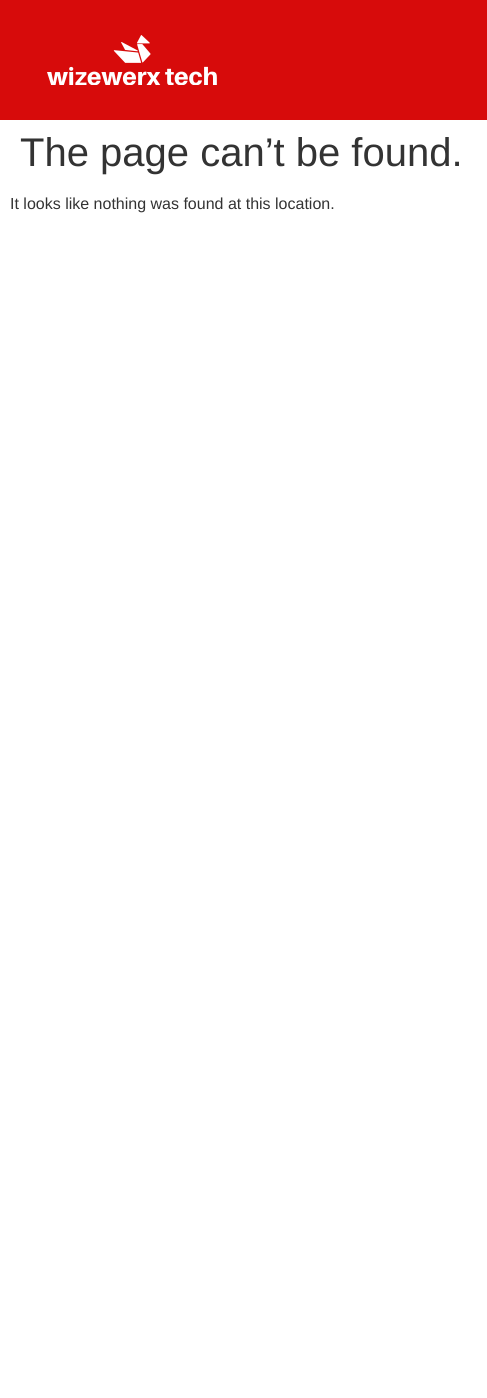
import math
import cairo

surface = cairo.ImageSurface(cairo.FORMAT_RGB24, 487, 1398)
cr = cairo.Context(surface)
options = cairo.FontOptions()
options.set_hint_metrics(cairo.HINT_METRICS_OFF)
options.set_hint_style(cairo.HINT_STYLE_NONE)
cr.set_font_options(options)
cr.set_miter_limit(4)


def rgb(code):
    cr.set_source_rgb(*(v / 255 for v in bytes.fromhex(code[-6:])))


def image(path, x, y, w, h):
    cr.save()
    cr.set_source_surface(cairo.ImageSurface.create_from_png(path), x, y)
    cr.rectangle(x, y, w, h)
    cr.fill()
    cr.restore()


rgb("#ffffff")
cr.paint()
rgb("#d70b0b")
cr.rectangle(0, 0, 487, 120)
cr.fill()
image("img/1.png", 47, 35, 170, 50)
cr.select_font_face("Liberation Sans")
cr.set_font_size(40)
rgb("#333333")
cr.move_to(20, 166)
cr.show_text("The page can’t be found.")
cr.set_font_size(16)
cr.move_to(10, 209)
cr.show_text("It looks like nothing was found at this location.")
surface.write_to_png("page.png")
